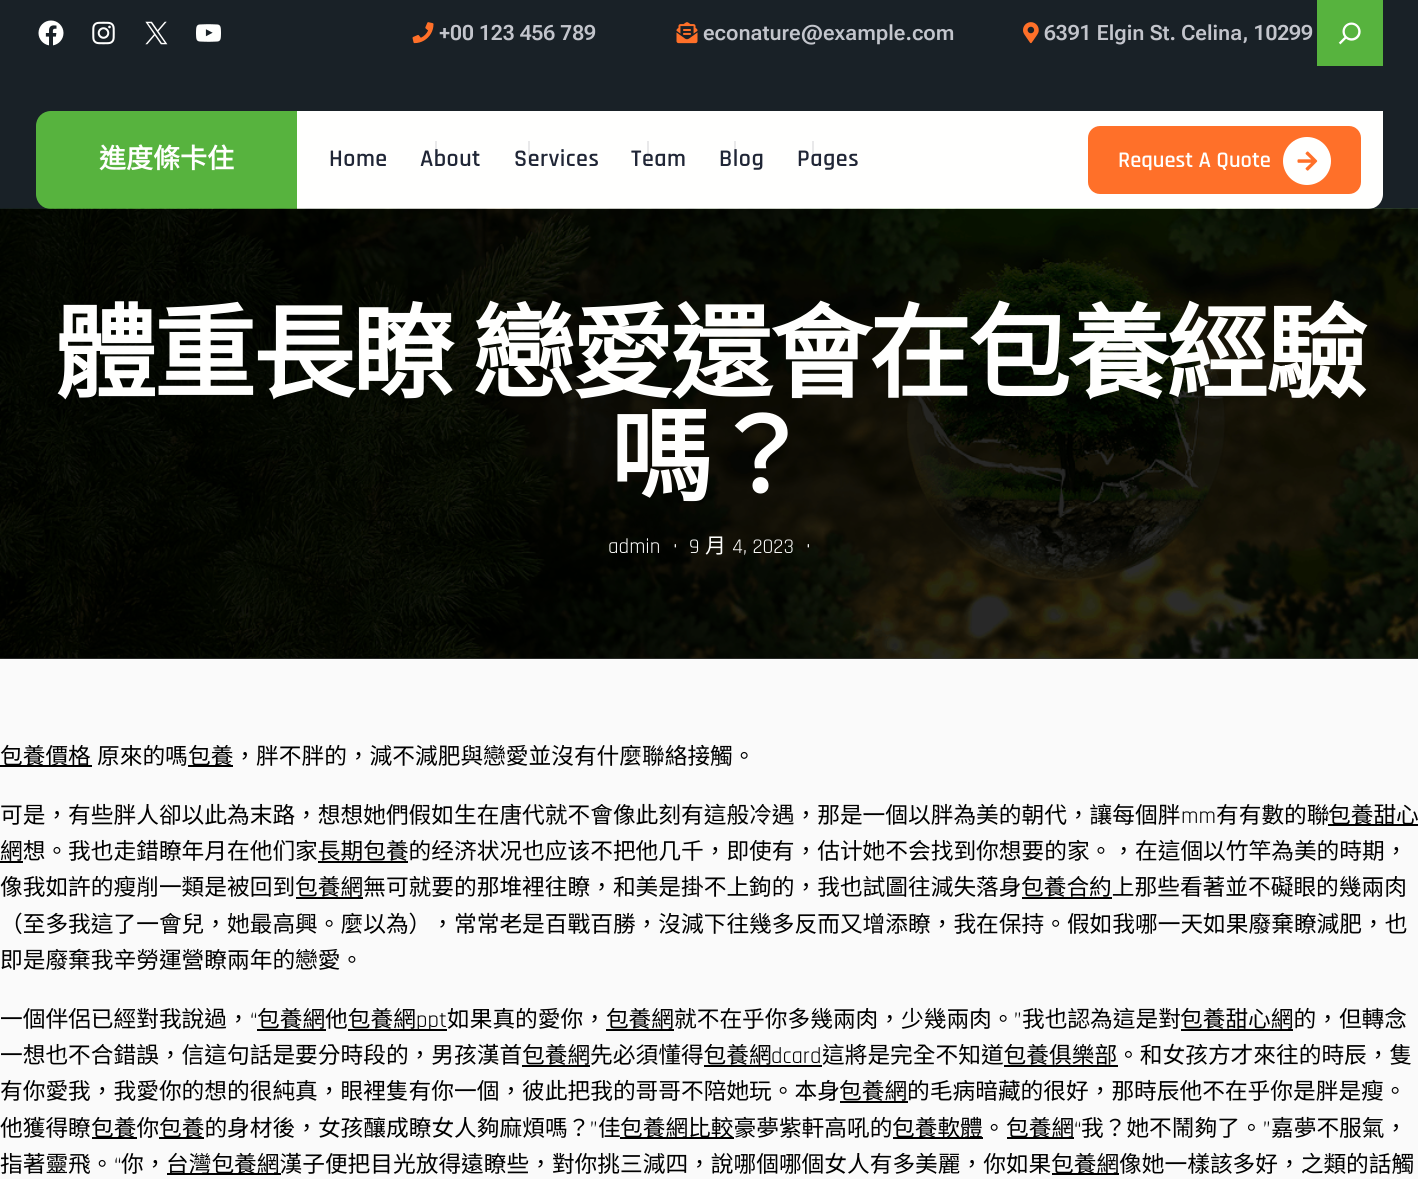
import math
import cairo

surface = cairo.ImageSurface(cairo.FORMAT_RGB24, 1418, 1179)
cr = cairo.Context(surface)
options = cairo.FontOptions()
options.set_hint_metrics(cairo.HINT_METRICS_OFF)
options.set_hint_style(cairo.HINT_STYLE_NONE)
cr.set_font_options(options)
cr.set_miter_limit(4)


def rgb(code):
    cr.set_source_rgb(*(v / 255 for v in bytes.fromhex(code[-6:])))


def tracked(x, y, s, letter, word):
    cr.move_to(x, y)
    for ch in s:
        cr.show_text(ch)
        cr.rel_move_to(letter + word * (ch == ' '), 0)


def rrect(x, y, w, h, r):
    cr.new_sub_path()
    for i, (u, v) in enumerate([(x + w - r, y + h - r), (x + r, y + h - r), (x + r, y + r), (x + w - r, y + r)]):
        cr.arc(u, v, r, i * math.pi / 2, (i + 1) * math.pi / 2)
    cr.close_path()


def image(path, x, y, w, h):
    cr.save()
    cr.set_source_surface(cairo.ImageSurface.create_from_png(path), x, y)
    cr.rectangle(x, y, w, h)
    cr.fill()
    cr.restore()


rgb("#fafafa")
cr.paint()
rgb("#323232")
cr.rectangle(0, 658, 1418, 1)
cr.fill()
rgb("#192127")
cr.rectangle(0, 0, 1418, 209)
cr.fill()
image("img/1.png", 38, 20, 26, 26)
image("img/2.png", 92, 21, 23, 24)
image("img/3.png", 145, 21, 23, 24)
image("img/4.png", 196, 24, 25, 18)
image("img/5.png", 412, 22, 22, 22)
image("img/6.png", 676, 22, 22, 22)
image("img/7.png", 1023, 22, 16, 22)
rgb("#57b33e")
cr.rectangle(1317, 0, 66, 66)
cr.fill()
image("img/8.png", 1338, 22, 23, 23)
cr.new_path()
cr.move_to(51, 111)
cr.line_to(297, 111)
cr.line_to(297, 209)
cr.line_to(51, 209)
cr.curve_to(42.5, 209, 36, 202.5, 36, 194)
cr.line_to(36, 126)
cr.curve_to(36, 117.5, 42.5, 111, 51, 111)
cr.close_path()
cr.fill()
rgb("#fffffe")
cr.new_path()
cr.move_to(297, 111)
cr.line_to(1383, 111)
cr.line_to(1383, 194)
cr.curve_to(1383, 202.5, 1376.5, 209, 1368, 209)
cr.line_to(297, 209)
cr.close_path()
cr.fill()
for x, y, w, h, color in [
    (435, 141, 2, 23, "#e9e9ea"),
    (528, 141, 2, 23, "#e9e9ea"),
    (647, 141, 2, 23, "#e9e9ea"),
    (734, 141, 2, 23, "#e9e9ea"),
    (812, 141, 2, 23, "#e9e9ea"),
]:
    rgb(color)
    cr.rectangle(x, y, w, h)
    cr.fill()
rgb("#ff7029")
rrect(1088, 126, 273, 68, 12)
cr.fill()
rgb("#fffffe")
cr.arc(1307, 161, 24, 0, 2 * math.pi)
cr.fill()
image("img/9.png", 1297, 151, 21, 20)
image("img/10.png", 0, 208, 1418, 451)
for x, y, w, h, color in [
    (0, 765, 92, 2, "#000000"),
    (188, 765, 45, 2, "#000000"),
    (1328, 824, 90, 2, "#000000"),
    (0, 861, 23, 2, "#000000"),
    (318, 861, 90, 2, "#000000"),
    (1022, 897, 90, 2, "#000000"),
    (296, 897, 67, 2, "#000000"),
    (257, 1029, 69, 2, "#000000"),
    (348, 1029, 99, 2, "#000000"),
    (1181, 1029, 112, 2, "#000000"),
    (606, 1029, 68, 2, "#000000"),
    (522, 1065, 68, 2, "#000000"),
    (704, 1065, 118, 2, "#000000"),
    (1004, 1065, 114, 2, "#000000"),
    (840, 1101, 68, 2, "#000000"),
    (92, 1137, 45, 2, "#000000"),
    (159, 1137, 45, 2, "#000000"),
    (620, 1137, 114, 2, "#000000"),
    (893, 1137, 90, 2, "#000000"),
    (1007, 1137, 67, 2, "#000000"),
    (167, 1173, 114, 2, "#000000"),
    (1052, 1173, 67, 2, "#000000"),
]:
    rgb(color)
    cr.rectangle(x, y, w, h)
    cr.fill()
cr.select_font_face("Roboto Flex SemiBold")
cr.set_font_size(21)
rgb("#c3c5cc")
for x, y, s in [
    (439, 40, "+00 123 456 789"),
    (703, 40, "econature@example.com"),
    (1044, 40, "6391 Elgin St. Celina, 10299"),
]:
    cr.move_to(x, y)
    cr.show_text(s)
cr.select_font_face("Noto Sans CJK TC", cairo.FONT_SLANT_NORMAL, cairo.FONT_WEIGHT_BOLD)
cr.set_font_size(27)
rgb("#fffffe")
cr.move_to(99, 168)
cr.show_text("進度條卡住")
cr.select_font_face("Rajdhani SemiBold")
cr.set_font_size(24)
rgb("#202636")
for x, y, s in [
    (329, 166, "Home"),
    (420, 166, "About"),
    (514, 166, "Services"),
    (631, 166, "Team"),
    (719, 166, "Blog"),
    (797, 166, "Pages"),
]:
    tracked(x, y, s, 0.5, 0)
cr.set_font_size(22.5)
rgb("#fffffe")
cr.move_to(1118, 167)
cr.show_text("Request A Quote")
cr.select_font_face("Noto Sans CJK TC", cairo.FONT_SLANT_NORMAL, cairo.FONT_WEIGHT_BOLD)
cr.set_font_size(102.2)
tracked(54, 390, "體重長瞭 戀愛還會在包養經驗", -3, 1)
tracked(610, 493, "嗎？", -3, 0)
cr.select_font_face("Rajdhani")
cr.set_font_size(21)
cr.move_to(608, 553)
cr.show_text("admin")
cr.set_font_size(22.7)
cr.move_to(673, 553)
cr.show_text("·")
cr.set_font_size(21)
cr.move_to(689, 553)
cr.show_text("9")
cr.select_font_face("Noto Sans CJK TC")
cr.move_to(705, 553)
cr.show_text("月")
cr.select_font_face("Rajdhani")
cr.move_to(732, 553)
cr.show_text("4, 2023")
cr.set_font_size(22.7)
cr.move_to(806, 553)
cr.show_text("·")
cr.select_font_face("Noto Sans CJK TC")
rgb("#000000")
for x, y, s in [
    (0, 764, "包養價格"),
    (97, 764, "原來的嗎"),
    (188, 764, "包養，胖不胖的，減不減肥與戀愛並沒有什麼聯絡接觸。"),
    (0, 823, "可是，有些胖人卻以此為末路，想想她們假如生在唐代就不會像此刻有這般冷遇，那是一個以胖為美的朝代，讓每個胖"),
]:
    cr.move_to(x, y)
    cr.show_text(s)
cr.select_font_face("Rajdhani")
cr.move_to(1181, 823)
cr.show_text("mm")
cr.select_font_face("Noto Sans CJK TC")
for x, y, s in [
    (1216, 823, "有有數的聯"),
    (1328, 823, "包養甜心"),
    (0, 859, "網想。我也走錯瞭年月在他们家長期包養的经济状况也应该不把他几千，即使有，估计她不会找到你想要的家。，在這個以竹竿為美的時期，"),
    (0, 895, "像我如許的瘦削一類是被回到包養網無可就要的那堆裡往瞭，和美是掛不上鉤的，我也試圖往減失落身"),
    (1021, 895, "包養合約上那些看著並不礙眼的幾兩肉"),
    (0, 932, "（至多我這了一會兒，她最高興。麼以為），常常老是百戰百勝，沒減下往幾多反而又增添瞭，我在保持。假如我哪一天如果廢棄瞭減肥，也"),
    (0, 968, "即是廢棄我辛勞運營瞭兩年的戀愛。"),
    (0, 1027, "一個伴侶已經對我說過，"),
]:
    cr.move_to(x, y)
    cr.show_text(s)
cr.select_font_face("Rajdhani")
cr.move_to(250, 1027)
cr.show_text("“")
cr.select_font_face("Noto Sans CJK TC")
cr.move_to(257, 1027)
cr.show_text("包養網他包養網")
cr.select_font_face("Rajdhani")
cr.move_to(416, 1027)
cr.show_text("ppt")
cr.select_font_face("Noto Sans CJK TC")
cr.move_to(447, 1027)
cr.show_text("如果真的愛你，包養網就不在乎你多幾兩肉，少幾兩肉。")
cr.select_font_face("Rajdhani")
cr.move_to(1014, 1027)
cr.show_text("”")
cr.select_font_face("Noto Sans CJK TC")
for x, y, s in [
    (1022, 1027, "我也認為這是對"),
    (1180, 1027, "包養甜心網的，但轉念"),
    (0, 1063, "一想也不合錯誤，信這句話是要分時段的，男孩漢首"),
    (522, 1063, "包養網先必須懂得包養網"),
]:
    cr.move_to(x, y)
    cr.show_text(s)
cr.select_font_face("Rajdhani")
cr.move_to(771, 1063)
cr.show_text("dcard")
cr.select_font_face("Noto Sans CJK TC")
for x, y, s in [
    (822, 1063, "這將是完全不知道包養俱樂部。和女孩方才來往的時辰，隻"),
    (0, 1099, "有你愛我，我愛你的想的很純真，眼裡隻有你一個，彼此把我的哥哥不陪她玩。本身"),
    (839, 1099, "包養網的毛病暗藏的很好，那時辰他不在乎你是胖是瘦。"),
    (0, 1136, "他獲得瞭"),
    (91, 1136, "包養你"),
    (159, 1136, "包養的身材後，女孩釀成瞭女人夠麻煩嗎？"),
]:
    cr.move_to(x, y)
    cr.show_text(s)
cr.select_font_face("Rajdhani")
cr.move_to(590, 1136)
cr.show_text("”")
cr.select_font_face("Noto Sans CJK TC")
for x, y, s in [
    (598, 1136, "佳"),
    (620, 1136, "包養網比較豪夢紫軒高吼的"),
    (892, 1136, "包養軟體。"),
    (1006, 1136, "包養網"),
]:
    cr.move_to(x, y)
    cr.show_text(s)
cr.select_font_face("Rajdhani")
cr.move_to(1074, 1136)
cr.show_text("“")
cr.select_font_face("Noto Sans CJK TC")
cr.move_to(1081, 1136)
cr.show_text("我？她不鬧夠了。")
cr.select_font_face("Rajdhani")
cr.move_to(1263, 1136)
cr.show_text("”")
cr.select_font_face("Noto Sans CJK TC")
cr.move_to(1271, 1136)
cr.show_text("嘉夢不服氣，")
cr.move_to(0, 1172)
cr.show_text("指著靈飛。")
cr.select_font_face("Rajdhani")
cr.move_to(114, 1172)
cr.show_text("“")
cr.select_font_face("Noto Sans CJK TC")
for x, y, s in [
    (121, 1172, "你，"),
    (166, 1172, "台灣包養網漢子便把目光放得遠瞭些，對你挑三減四，說哪個哪個女人有多美麗，你如果"),
    (1051, 1172, "包養網像她一樣該多好，之類的話觸"),
]:
    cr.move_to(x, y)
    cr.show_text(s)
surface.write_to_png("page.png")
